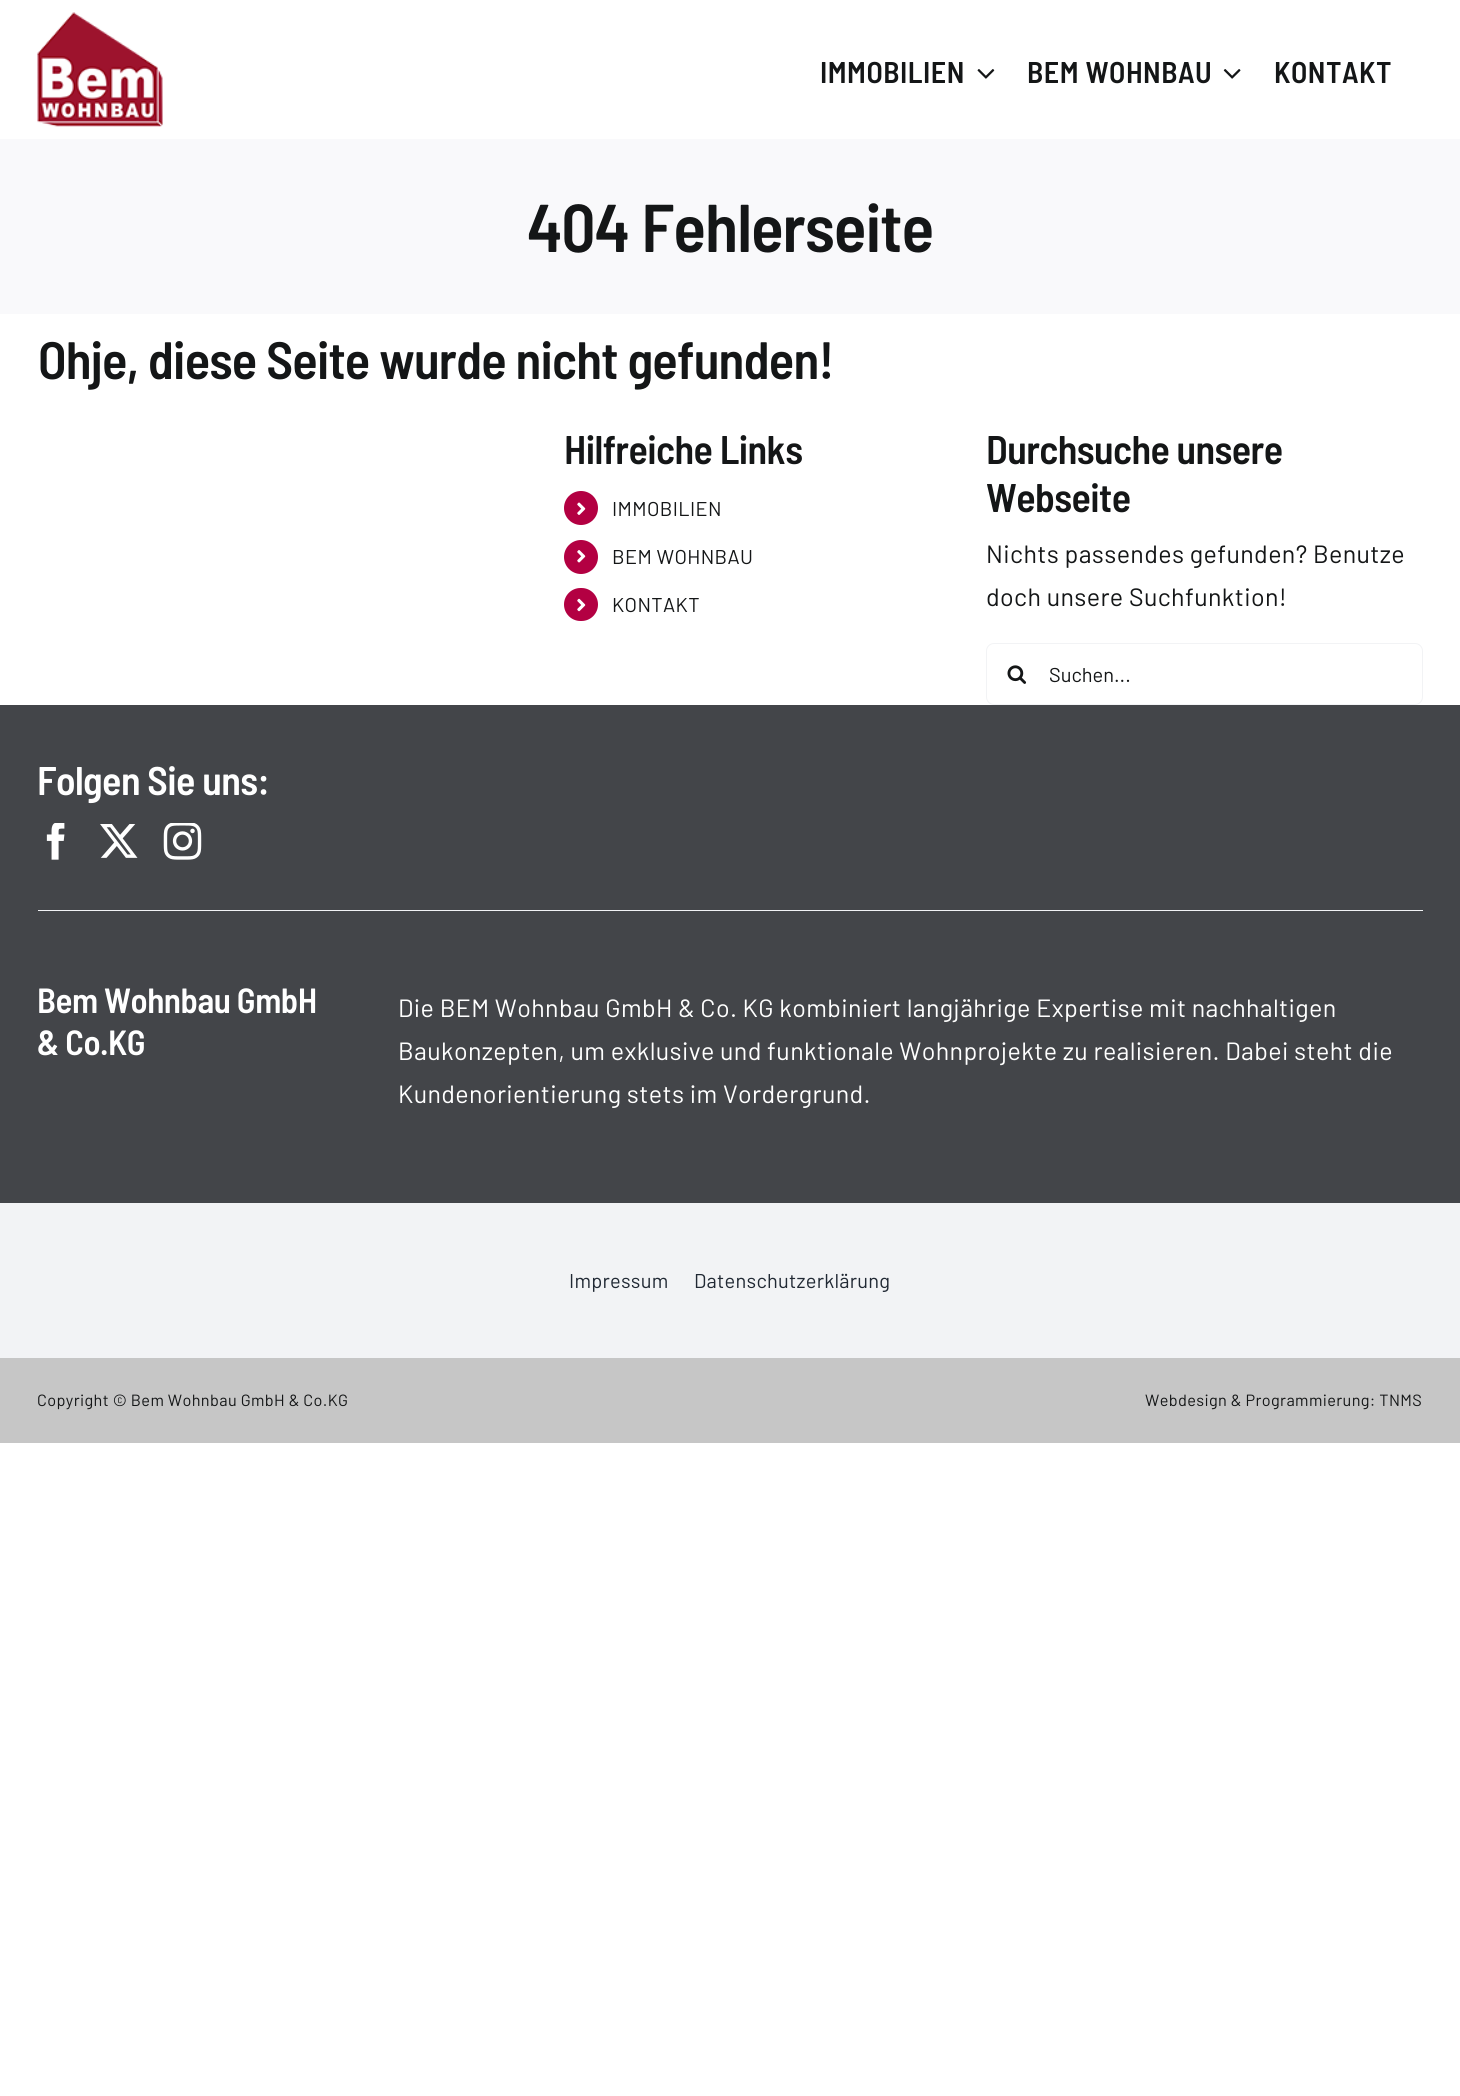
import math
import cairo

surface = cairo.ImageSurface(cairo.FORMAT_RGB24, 1460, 2096)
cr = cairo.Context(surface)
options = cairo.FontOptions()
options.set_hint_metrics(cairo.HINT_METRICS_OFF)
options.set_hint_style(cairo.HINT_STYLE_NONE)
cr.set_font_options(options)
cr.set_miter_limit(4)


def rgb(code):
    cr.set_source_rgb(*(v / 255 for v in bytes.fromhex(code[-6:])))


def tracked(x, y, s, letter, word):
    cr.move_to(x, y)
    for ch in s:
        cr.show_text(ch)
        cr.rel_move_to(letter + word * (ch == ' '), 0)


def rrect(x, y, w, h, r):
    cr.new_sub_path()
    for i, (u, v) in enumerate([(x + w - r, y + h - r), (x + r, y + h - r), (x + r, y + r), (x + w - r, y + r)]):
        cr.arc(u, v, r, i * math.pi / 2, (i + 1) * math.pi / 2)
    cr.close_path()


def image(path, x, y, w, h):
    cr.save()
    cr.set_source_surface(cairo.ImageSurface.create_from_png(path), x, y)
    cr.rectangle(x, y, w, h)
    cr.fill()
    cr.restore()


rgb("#ffffff")
cr.paint()
image("img/1.png", 37, 12, 126, 115)
image("img/2.png", 977, 69, 18, 10)
image("img/3.png", 1223, 69, 18, 10)
rgb("#f9f9fb")
cr.rectangle(0, 139, 1460, 175)
cr.fill()
rgb("#b30042")
cr.arc(581, 508, 17, 0, 2 * math.pi)
cr.fill()
image("img/4.png", 577, 502, 9, 13)
cr.arc(581, 557, 17, 0, 2 * math.pi)
cr.fill()
image("img/5.png", 577, 550, 9, 13)
rrect(564, 588, 34, 33, 16.5)
cr.fill()
image("img/6.png", 577, 598, 9, 14)
rrect(986.5, 643.5, 436, 61, 7.5)
rgb("#f2f3f5")
cr.set_line_width(1)
cr.stroke()
image("img/7.png", 1007, 665, 20, 19)
rgb("#434549")
cr.rectangle(0, 705, 1460, 498)
cr.fill()
image("img/8.png", 46, 823, 19, 37)
image("img/9.png", 100, 824, 38, 34)
image("img/10.png", 163, 823, 39, 37)
for x, y, w, h, color in [
    (38, 910, 1385, 1, "#f2f3f5"),
    (0, 1203, 1460, 155, "#f2f3f5"),
    (0, 1358, 1460, 85, "#c6c6c6"),
]:
    rgb(color)
    cr.rectangle(x, y, w, h)
    cr.fill()
cr.select_font_face("Barlow Semi Condensed SemiBold")
cr.set_font_size(30)
rgb("#141617")
for x, y, s in [
    (820, 83, "IMMOBILIEN"),
    (1027, 83, "BEM WOHNBAU"),
    (1274, 83, "KONTAKT"),
]:
    tracked(x, y, s, 0.5, 0)
cr.set_font_size(67.5)
tracked(527, 252, "404 Fehlerseite", -1, 0)
cr.set_font_size(52.5)
tracked(38, 379, "Ohje, diese Seite wurde nicht gefunden!", -0.8, 0)
cr.set_font_size(40)
tracked(564, 464, "Hilfreiche Links", -0.6, 0)
cr.select_font_face("Barlow")
cr.set_font_size(20)
for x, y, s in [
    (612, 516, "IMMOBILIEN"),
    (612, 564, "BEM WOHNBAU"),
    (612, 612, "KONTAKT"),
]:
    tracked(x, y, s, 0.38, 0)
cr.select_font_face("Barlow Semi Condensed SemiBold")
cr.set_font_size(40)
tracked(986, 464, "Durchsuche unsere", -0.6, 0)
tracked(986, 512, "Webseite", -0.6, 0)
cr.select_font_face("Barlow")
cr.set_font_size(25)
tracked(986, 563, "Nichts passendes gefunden? Benutze", 0.38, 0)
tracked(986, 606, "doch unsere Suchfunktion!", 0.38, 0)
cr.set_font_size(20)
cr.move_to(1049, 682)
cr.show_text("Suchen...")
cr.select_font_face("Barlow Semi Condensed SemiBold")
cr.set_font_size(40)
rgb("#ffffff")
tracked(37, 795, "Folgen Sie uns:", -0.6, 0)
cr.set_font_size(35)
tracked(37, 1013, "Bem Wohnbau GmbH", -0.5, 0)
tracked(37, 1055, "& Co.KG", -0.5, 0)
cr.select_font_face("Barlow")
cr.set_font_size(25)
for x, y, s in [
    (398, 1017, "Die BEM Wohnbau GmbH & Co. KG kombiniert langjährige Expertise mit nachhaltigen"),
    (398, 1060, "Baukonzepten, um exklusive und funktionale Wohnprojekte zu realisieren. Dabei steht die"),
    (398, 1103, "Kundenorientierung stets im Vordergrund."),
]:
    tracked(x, y, s, 0.38, 0)
cr.set_font_size(20)
rgb("#212934")
tracked(569, 1288, "Impressum", 0.25, 0)
tracked(694, 1288, "Datenschutzerklärung", 0.25, 0)
cr.set_font_size(16.25)
rgb("#141617")
tracked(37, 1406, "Copyright © Bem Wohnbau GmbH & Co.KG", 0.38, 0)
tracked(1145, 1406, "Webdesign & Programmierung: TNMS", 0.38, 0)
surface.write_to_png("page.png")
